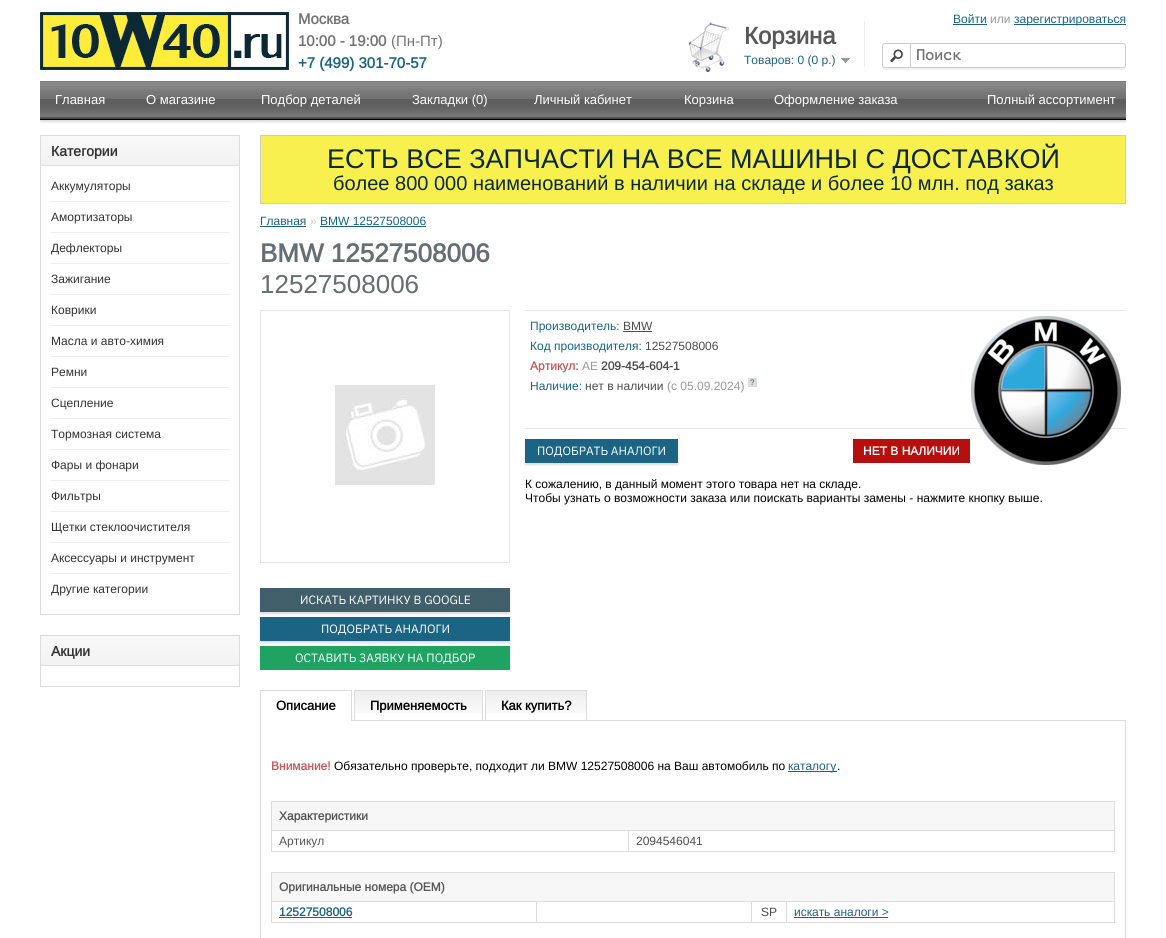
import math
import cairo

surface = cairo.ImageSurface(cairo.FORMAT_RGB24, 1166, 938)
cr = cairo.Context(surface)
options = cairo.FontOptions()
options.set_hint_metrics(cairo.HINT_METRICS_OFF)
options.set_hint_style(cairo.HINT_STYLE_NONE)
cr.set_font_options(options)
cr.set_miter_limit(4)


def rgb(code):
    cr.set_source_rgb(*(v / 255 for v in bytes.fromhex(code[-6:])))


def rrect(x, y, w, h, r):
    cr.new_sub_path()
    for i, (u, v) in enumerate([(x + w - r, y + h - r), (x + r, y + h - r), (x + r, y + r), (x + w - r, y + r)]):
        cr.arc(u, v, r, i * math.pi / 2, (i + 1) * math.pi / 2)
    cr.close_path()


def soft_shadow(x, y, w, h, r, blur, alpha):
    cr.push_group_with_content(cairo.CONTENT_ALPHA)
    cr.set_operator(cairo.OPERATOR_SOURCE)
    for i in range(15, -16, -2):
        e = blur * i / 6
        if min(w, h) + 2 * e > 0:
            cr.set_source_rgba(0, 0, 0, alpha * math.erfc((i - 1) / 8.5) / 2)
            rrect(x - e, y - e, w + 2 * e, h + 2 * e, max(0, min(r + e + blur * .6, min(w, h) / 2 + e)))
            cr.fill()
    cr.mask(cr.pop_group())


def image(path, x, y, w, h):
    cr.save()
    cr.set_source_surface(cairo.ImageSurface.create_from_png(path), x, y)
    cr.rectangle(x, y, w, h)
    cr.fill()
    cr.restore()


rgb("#ffffff")
cr.paint()
image("img/1.png", 40, 12, 249, 58)
rgb("#1b6483")
cr.rectangle(953, 24, 34, 1)
cr.fill()
cr.rectangle(1014, 24, 112, 1)
cr.fill()
image("img/2.png", 689, 22, 40, 50)
rgb("#eeeeee")
cr.rectangle(864, 21, 1, 46)
cr.fill()
image("img/3.png", 841, 58, 9, 5)
rgb("#f0f0f0")
cr.new_path()
cr.move_to(882, 65)
cr.curve_to(882, 67, 882, 70, 885, 70)
cr.line_to(1124, 70)
cr.curve_to(1126, 69, 1126, 67, 1126, 65)
cr.curve_to(1126, 67, 1125, 68, 1123, 68)
cr.line_to(885, 68)
cr.curve_to(883, 68, 882, 67, 882, 65)
cr.close_path()
cr.fill()
rrect(882.5, 43.5, 243, 24, 2.5)
rgb("#cccccc")
cr.set_line_width(1)
cr.stroke()
image("img/4.png", 890, 49, 13, 13)
cr.rectangle(910, 43, 1, 24)
cr.fill()
cr.save()
cr.rectangle(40, 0, 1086, 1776)
cr.clip()
rgb("#dddddd")
soft_shadow(40, 83, 1096, 39, 0, 1, 1)
cr.restore()
image("img/5.png", 40, 81, 1086, 38)
rgb("#000000")
cr.rectangle(40, 119, 1086, 1)
cr.fill()
image("img/6.png", 41, 136, 198, 29)
cr.rectangle(40.5, 135.5, 199, 30)
rgb("#dbdee1")
cr.stroke()
for x, y, w, h, color in [
    (239, 166, 1, 449, "#dbdee1"),
    (40, 614, 200, 1, "#dbdee1"),
    (40, 166, 1, 449, "#dbdee1"),
    (51, 201, 178, 1, "#eeeeee"),
    (51, 232, 178, 1, "#eeeeee"),
    (51, 263, 178, 1, "#eeeeee"),
    (51, 294, 178, 1, "#eeeeee"),
    (51, 325, 178, 1, "#eeeeee"),
    (51, 356, 178, 1, "#eeeeee"),
    (51, 387, 178, 1, "#eeeeee"),
    (51, 418, 178, 1, "#eeeeee"),
    (51, 449, 178, 1, "#eeeeee"),
    (51, 480, 178, 1, "#eeeeee"),
    (51, 511, 178, 1, "#eeeeee"),
    (51, 542, 178, 1, "#eeeeee"),
    (51, 573, 178, 1, "#eeeeee"),
]:
    rgb(color)
    cr.rectangle(x, y, w, h)
    cr.fill()
image("img/6.png", 41, 636, 198, 29)
cr.rectangle(40.5, 635.5, 199, 30)
rgb("#dbdee1")
cr.stroke()
for x, y, w, h, color in [
    (239, 666, 1, 21, "#dbdee1"),
    (40, 686, 200, 1, "#dbdee1"),
    (40, 666, 1, 21, "#dbdee1"),
]:
    rgb(color)
    cr.rectangle(x, y, w, h)
    cr.fill()
rgb("#f7f04e")
cr.rectangle(260.5, 135.5, 865, 68)
cr.fill_preserve()
rgb("#cccccc")
cr.stroke()
for x, y, w, h, color in [
    (260, 226, 46, 1, "#1b6483"),
    (320, 226, 106, 1, "#1b6483"),
    (525, 310, 601, 1, "#e7e7e7"),
    (525, 428, 601, 1, "#e7e7e7"),
    (623, 331, 29, 1, "#4d4d4d"),
]:
    rgb(color)
    cr.rectangle(x, y, w, h)
    cr.fill()
image("img/7.png", 971, 316, 150, 149)
rgb("#dbdee1")
cr.rectangle(748, 378, 9, 9)
cr.fill()
rgb("#dddddd")
soft_shadow(525, 441, 153, 24, 0, 1, 1)
rgb("#1b6483")
cr.rectangle(525, 439, 153, 24)
cr.fill()
rgb("#b70e0e")
cr.rectangle(853, 439, 117, 24)
cr.fill()
cr.rectangle(260.5, 310.5, 249, 252)
rgb("#e7e7e7")
cr.stroke()
image("img/8.png", 335, 385, 103, 104)
rgb("#dddddd")
soft_shadow(260, 590, 250, 24, 0, 1, 1)
rgb("#415e6b")
cr.rectangle(260, 588, 250, 24)
cr.fill()
rgb("#dddddd")
soft_shadow(260, 619, 250, 24, 0, 1, 1)
rgb("#1b6483")
cr.rectangle(260, 617, 250, 24)
cr.fill()
cr.save()
cr.rectangle(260, 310, 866, 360)
cr.clip()
rgb("#dddddd")
soft_shadow(260, 648, 250, 24, 0, 1, 1)
cr.restore()
for x, y, w, h, color in [
    (260, 646, 250, 24, "#1ea362"),
    (352, 720, 774, 1, "#dddddd"),
    (260, 690, 92, 1, "#dddddd"),
    (351, 690, 1, 31, "#dddddd"),
    (260, 690, 1, 248, "#dddddd"),
]:
    rgb(color)
    cr.rectangle(x, y, w, h)
    cr.fill()
image("img/9.png", 355, 691, 127, 22)
for x, y, w, h, color in [
    (354, 690, 129, 1, "#dddddd"),
    (482, 690, 1, 30, "#dddddd"),
    (354, 690, 1, 30, "#dddddd"),
]:
    rgb(color)
    cr.rectangle(x, y, w, h)
    cr.fill()
image("img/10.png", 486, 691, 100, 22)
for x, y, w, h, color in [
    (485, 690, 102, 1, "#dddddd"),
    (586, 690, 1, 30, "#dddddd"),
    (485, 690, 1, 30, "#dddddd"),
    (1125, 721, 1, 217, "#dddddd"),
    (788, 771, 49, 1, "#1b6483"),
    (271, 801, 844, 1, "#dddddd"),
    (271, 801, 1, 51, "#dddddd"),
    (272, 802, 842, 28, "#f7f7f7"),
    (1114, 801, 1, 51, "#dddddd"),
    (628, 851, 487, 1, "#dddddd"),
    (628, 830, 1, 22, "#dddddd"),
    (271, 830, 844, 1, "#dddddd"),
    (271, 851, 358, 1, "#dddddd"),
    (271, 872, 844, 1, "#dddddd"),
    (271, 872, 1, 51, "#dddddd"),
    (272, 873, 842, 28, "#f7f7f7"),
    (1114, 872, 1, 51, "#dddddd"),
    (786, 922, 329, 1, "#dddddd"),
    (786, 901, 1, 22, "#dddddd"),
    (751, 922, 36, 1, "#dddddd"),
    (751, 901, 1, 22, "#dddddd"),
    (536, 922, 216, 1, "#dddddd"),
    (536, 901, 1, 22, "#dddddd"),
    (271, 901, 844, 1, "#dddddd"),
    (271, 922, 266, 1, "#dddddd"),
    (279, 917, 73, 1, "#1b6483"),
    (794, 917, 94, 1, "#1b6483"),
]:
    rgb(color)
    cr.rectangle(x, y, w, h)
    cr.fill()
cr.select_font_face("Arimo", cairo.FONT_SLANT_NORMAL, cairo.FONT_WEIGHT_BOLD)
cr.set_font_size(15)
rgb("#757575")
cr.move_to(298, 24)
cr.show_text("Москва")
cr.select_font_face("Arimo")
cr.set_font_size(12)
rgb("#1b6483")
cr.move_to(953, 23)
cr.show_text("Войти")
rgb("#999999")
cr.move_to(990, 23)
cr.show_text("или")
rgb("#1b6483")
cr.move_to(1014, 23)
cr.show_text("зарегистрироваться")
cr.select_font_face("Arimo", cairo.FONT_SLANT_NORMAL, cairo.FONT_WEIGHT_BOLD)
cr.set_font_size(15)
rgb("#757575")
cr.move_to(298, 46)
cr.show_text("10:00 - 19:00")
cr.select_font_face("Arimo")
cr.move_to(391, 46)
cr.show_text("(Пн-Пт)")
cr.select_font_face("Arimo", cairo.FONT_SLANT_NORMAL, cairo.FONT_WEIGHT_BOLD)
cr.set_font_size(24)
rgb("#585858")
cr.move_to(744, 44)
cr.show_text("Корзина")
cr.select_font_face("Arimo")
cr.set_font_size(12)
rgb("#1b6483")
cr.move_to(744, 64)
cr.show_text("Товаров: 0 (0 р.)")
cr.select_font_face("PT Mono", cairo.FONT_SLANT_NORMAL, cairo.FONT_WEIGHT_BOLD)
cr.set_font_size(15)
rgb("#757575")
cr.move_to(916, 60)
cr.show_text("Поиск")
cr.select_font_face("Arimo", cairo.FONT_SLANT_NORMAL, cairo.FONT_WEIGHT_BOLD)
rgb("#1b6483")
cr.move_to(298, 68)
cr.show_text("+7 (499) 301-70-57")
cr.select_font_face("Arimo")
cr.set_font_size(13)
rgb("#ffffff")
for x, y, s in [
    (55, 104, "Главная"),
    (146, 104, "О магазине"),
    (261, 104, "Подбор деталей"),
    (412, 104, "Закладки (0)"),
    (534, 104, "Личный кабинет"),
    (684, 104, "Корзина"),
    (774, 104, "Оформление заказа"),
    (987, 104, "Полный ассортимент"),
]:
    cr.move_to(x, y)
    cr.show_text(s)
cr.select_font_face("Arimo", cairo.FONT_SLANT_NORMAL, cairo.FONT_WEIGHT_BOLD)
cr.set_font_size(14)
rgb("#333333")
cr.move_to(51, 156)
cr.show_text("Категории")
cr.select_font_face("Arimo")
cr.set_font_size(12)
for x, y, s in [
    (51, 190, "Аккумуляторы"),
    (51, 221, "Амортизаторы"),
    (51, 252, "Дефлекторы"),
    (51, 283, "Зажигание"),
    (51, 314, "Коврики"),
    (51, 345, "Масла и авто-химия"),
    (51, 376, "Ремни"),
    (51, 407, "Сцепление"),
    (51, 438, "Тормозная система"),
    (51, 469, "Фары и фонари"),
    (51, 500, "Фильтры"),
    (51, 531, "Щетки стеклоочистителя"),
    (51, 562, "Аксессуары и инструмент"),
    (51, 593, "Другие категории"),
]:
    cr.move_to(x, y)
    cr.show_text(s)
cr.select_font_face("Arimo", cairo.FONT_SLANT_NORMAL, cairo.FONT_WEIGHT_BOLD)
cr.set_font_size(14)
cr.move_to(51, 656)
cr.show_text("Акции")
cr.select_font_face("Arimo")
cr.set_font_size(27)
rgb("#0b2834")
cr.move_to(327, 168)
cr.show_text("ЕСТЬ ВСЕ ЗАПЧАСТИ НА ВСЕ МАШИНЫ С ДОСТАВКОЙ")
cr.set_font_size(20)
cr.move_to(333, 190)
cr.show_text("более 800 000 наименований в наличии на складе и более 10 млн. под заказ")
cr.set_font_size(12)
rgb("#1b6483")
cr.move_to(260, 225)
cr.show_text("Главная")
rgb("#cccccc")
cr.move_to(310, 225)
cr.show_text("»")
rgb("#1b6483")
cr.move_to(320, 225)
cr.show_text("BMW 12527508006")
cr.select_font_face("Arimo", cairo.FONT_SLANT_NORMAL, cairo.FONT_WEIGHT_BOLD)
cr.set_font_size(26)
rgb("#636e75")
cr.move_to(260, 262)
cr.show_text("BMW 12527508006")
cr.select_font_face("Arimo")
cr.move_to(260, 293)
cr.show_text("12527508006")
cr.set_font_size(12)
rgb("#1b6483")
cr.move_to(530, 330)
cr.show_text("Производитель:")
rgb("#4d4d4d")
cr.move_to(623, 330)
cr.show_text("BMW")
rgb("#1b6483")
cr.move_to(530, 350)
cr.show_text("Код производителя:")
rgb("#4d4d4d")
cr.move_to(645, 350)
cr.show_text("12527508006")
cr.select_font_face("Arimo", cairo.FONT_SLANT_NORMAL, cairo.FONT_WEIGHT_BOLD)
rgb("#c25e5e")
cr.move_to(530, 370)
cr.show_text("Артикул:")
cr.select_font_face("Arimo")
rgb("#999999")
cr.move_to(582, 370)
cr.show_text("AE")
cr.select_font_face("Arimo", cairo.FONT_SLANT_NORMAL, cairo.FONT_WEIGHT_BOLD)
rgb("#4d4d4d")
cr.move_to(601, 370)
cr.show_text("209-454-604-1")
cr.select_font_face("Arimo")
rgb("#1b6483")
cr.move_to(530, 390)
cr.show_text("Наличие:")
rgb("#4d4d4d")
cr.move_to(585, 390)
cr.show_text("нет в наличии")
rgb("#999999")
cr.move_to(667, 390)
cr.show_text("(c 05.09.2024)")
cr.set_font_size(8)
rgb("#585858")
cr.move_to(750, 385)
cr.show_text("?")
cr.select_font_face("IBM Plex Sans")
cr.set_font_size(12)
rgb("#ffffff")
cr.move_to(537, 455)
cr.show_text("ПОДОБРАТЬ АНАЛОГИ")
cr.select_font_face("Arimo", cairo.FONT_SLANT_NORMAL, cairo.FONT_WEIGHT_BOLD)
cr.move_to(863, 455)
cr.show_text("НЕТ В НАЛИЧИИ")
cr.select_font_face("Arimo")
rgb("#000000")
cr.move_to(525, 488)
cr.show_text("К сожалению, в данный момент этого товара нет на складе.")
cr.move_to(525, 502)
cr.show_text("Чтобы узнать о возможности заказа или поискать варианты замены - нажмите кнопку выше.")
cr.select_font_face("IBM Plex Sans")
rgb("#ffffff")
for x, y, s in [
    (300, 604, "ИСКАТЬ КАРТИНКУ В GOOGLE"),
    (321, 633, "ПОДОБРАТЬ АНАЛОГИ"),
    (295, 662, "ОСТАВИТЬ ЗАЯВКУ НА ПОДБОР"),
]:
    cr.move_to(x, y)
    cr.show_text(s)
cr.select_font_face("Arimo", cairo.FONT_SLANT_NORMAL, cairo.FONT_WEIGHT_BOLD)
cr.set_font_size(13)
rgb("#000000")
for x, y, s in [
    (276, 710, "Описание"),
    (370, 710, "Применяемость"),
    (501, 710, "Как купить?"),
]:
    cr.move_to(x, y)
    cr.show_text(s)
cr.set_font_size(12)
rgb("#c25e5e")
cr.move_to(271, 770)
cr.show_text("Внимание!")
cr.select_font_face("Arimo")
rgb("#000000")
cr.move_to(334, 770)
cr.show_text("Обязательно проверьте, подходит ли BMW 12527508006 на Ваш автомобиль по")
rgb("#1b6483")
cr.move_to(788, 770)
cr.show_text("каталогу")
rgb("#000000")
cr.move_to(837, 770)
cr.show_text(".")
cr.select_font_face("Arimo", cairo.FONT_SLANT_NORMAL, cairo.FONT_WEIGHT_BOLD)
rgb("#585858")
cr.move_to(279, 820)
cr.show_text("Характеристики")
cr.select_font_face("Arimo")
cr.move_to(279, 845)
cr.show_text("Артикул")
rgb("#4d4d4d")
cr.move_to(636, 845)
cr.show_text("2094546041")
cr.select_font_face("Arimo", cairo.FONT_SLANT_NORMAL, cairo.FONT_WEIGHT_BOLD)
rgb("#585858")
cr.move_to(279, 891)
cr.show_text("Оригинальные номера (OEM)")
rgb("#1b6483")
cr.move_to(279, 916)
cr.show_text("12527508006")
cr.select_font_face("Arimo")
rgb("#4d4d4d")
cr.move_to(761, 916)
cr.show_text("SP")
rgb("#1b6483")
cr.move_to(794, 916)
cr.show_text("искать аналоги >")
surface.write_to_png("page.png")
